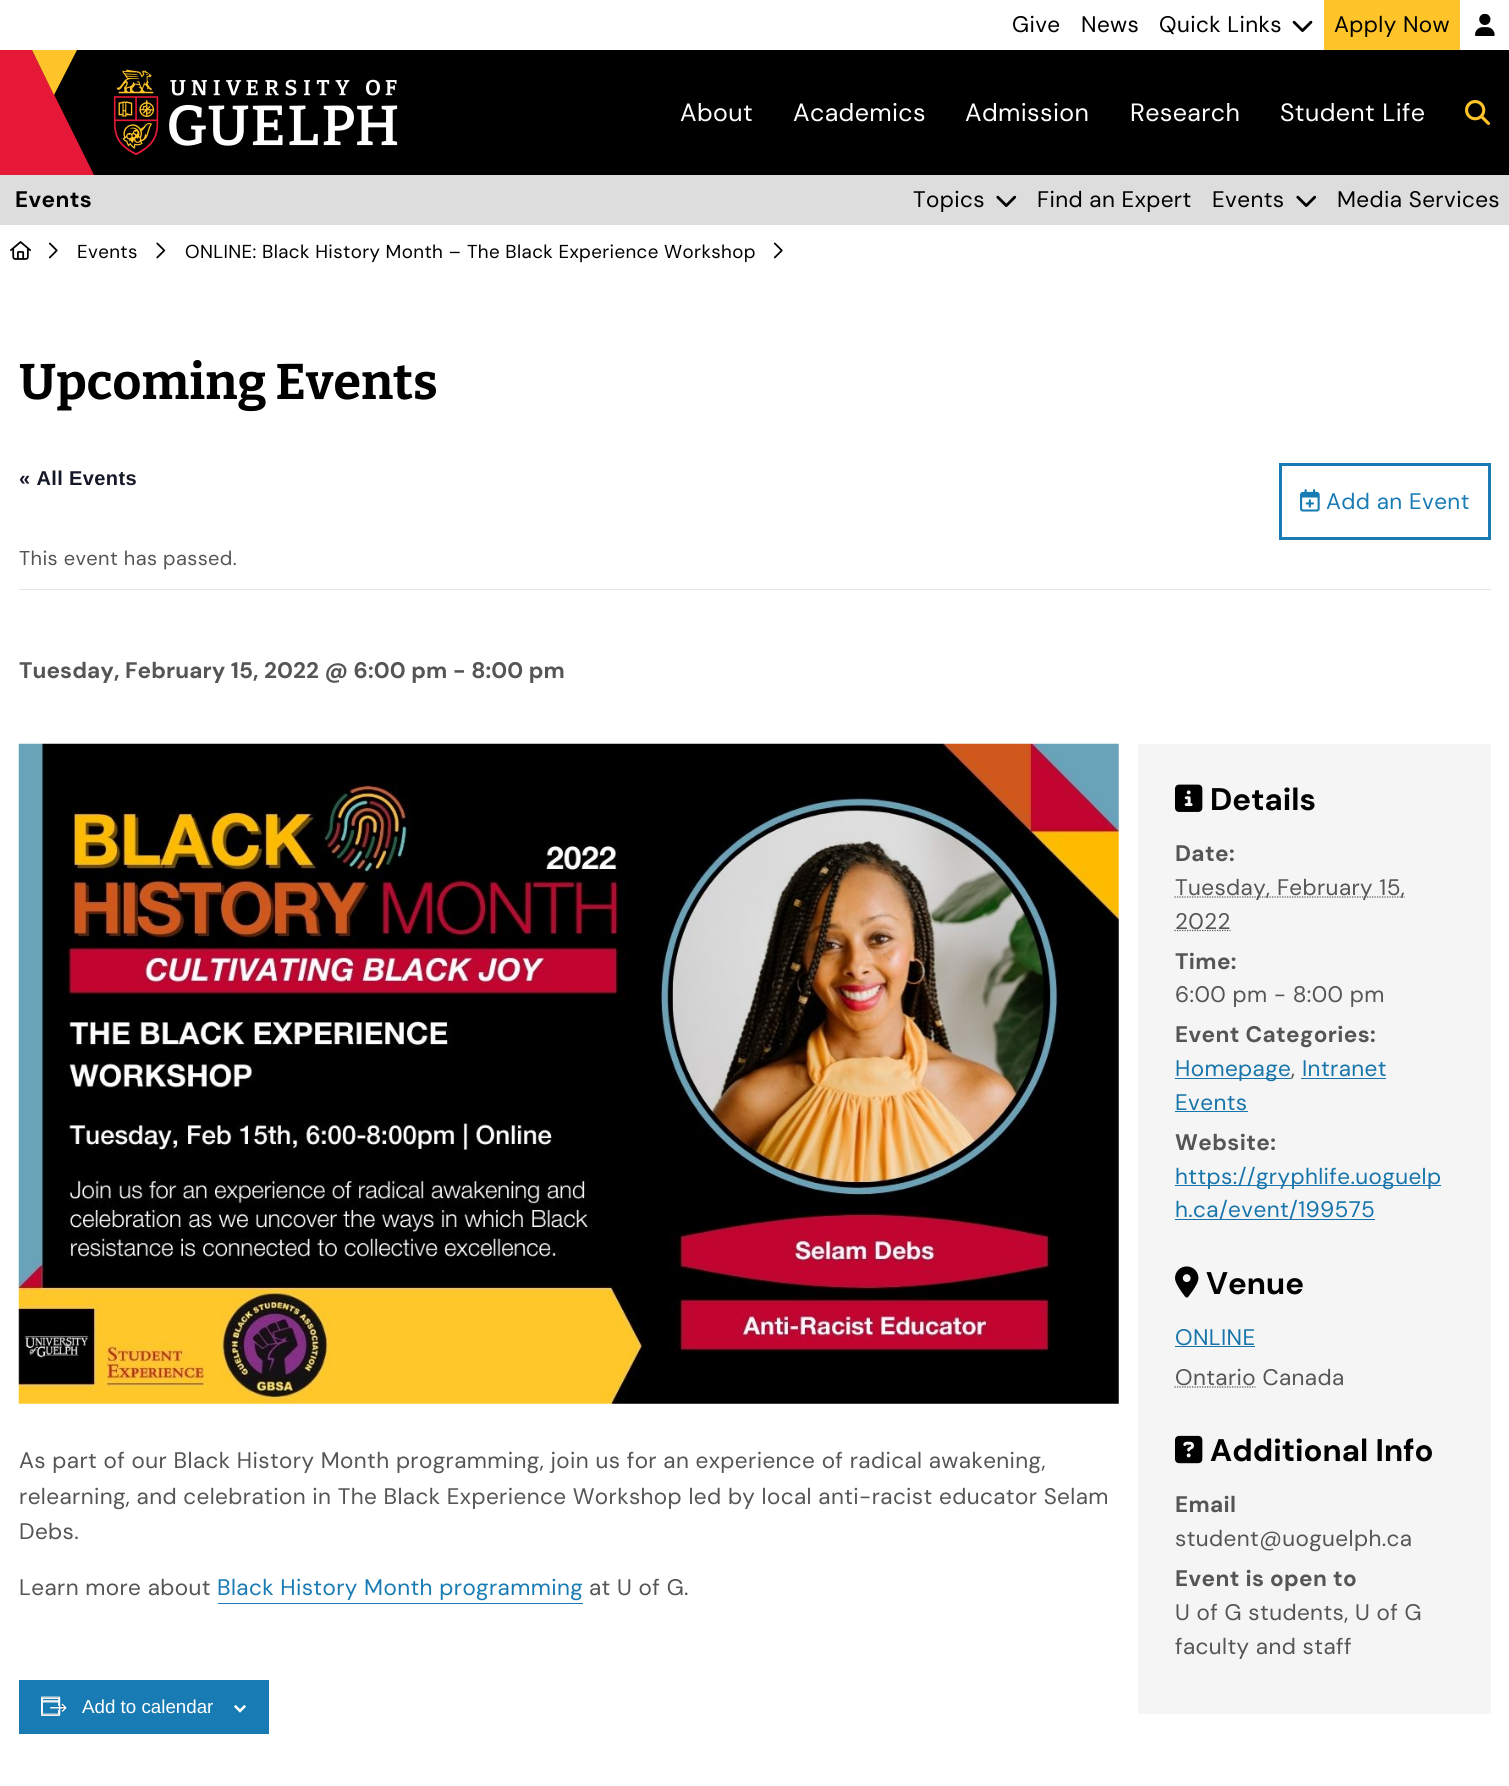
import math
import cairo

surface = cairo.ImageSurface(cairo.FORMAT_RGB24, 1509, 1786)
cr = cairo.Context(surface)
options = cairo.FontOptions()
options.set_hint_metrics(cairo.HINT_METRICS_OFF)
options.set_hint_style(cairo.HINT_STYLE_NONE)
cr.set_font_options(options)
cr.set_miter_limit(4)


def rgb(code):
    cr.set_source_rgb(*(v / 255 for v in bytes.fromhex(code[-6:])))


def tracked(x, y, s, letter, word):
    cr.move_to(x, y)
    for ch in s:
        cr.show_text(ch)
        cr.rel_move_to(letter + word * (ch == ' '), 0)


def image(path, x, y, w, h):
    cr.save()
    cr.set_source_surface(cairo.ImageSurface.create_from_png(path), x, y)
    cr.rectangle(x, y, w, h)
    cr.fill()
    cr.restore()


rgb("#ffffff")
cr.paint()
image("img/1.png", 1292, 20, 21, 12)
rgb("#ffc429")
cr.rectangle(1324, 0, 136, 50)
cr.fill()
image("img/2.png", 1475, 14, 20, 22)
rgb("#000000")
cr.rectangle(32, 50, 1477, 125)
cr.fill()
rgb("#e51937")
cr.new_path()
cr.move_to(32, 50)
cr.line_to(94, 175)
cr.line_to(0, 175)
cr.line_to(0, 50)
cr.fill()
rgb("#ffc429")
cr.new_path()
cr.move_to(32, 50)
cr.line_to(54, 95)
cr.line_to(77, 50)
cr.fill()
image("img/3.png", 113, 69, 285, 87)
image("img/4.png", 1465, 100, 25, 25)
rgb("#dddddd")
cr.rectangle(0, 175, 1509, 50)
cr.fill()
image("img/5.png", 996, 195, 21, 12)
image("img/5.png", 1296, 195, 21, 12)
image("img/6.png", 10, 241, 21, 19)
image("img/7.png", 48, 242, 10, 17)
image("img/8.png", 156, 242, 10, 17)
image("img/7.png", 773, 242, 10, 17)
rgb("#e4e4e4")
cr.rectangle(19, 589, 1472, 1)
cr.fill()
image("img/9.png", 18, 743, 1101, 661)
rgb("#187bb4")
cr.rectangle(218, 1603, 365, 1)
cr.fill()
cr.rectangle(19, 1680, 250, 54)
cr.fill()
image("img/10.png", 41, 1696, 26, 20)
image("img/11.png", 234, 1705, 12, 8)
rgb("#f5f5f5")
cr.rectangle(1138, 744, 353, 970)
cr.fill()
image("img/12.png", 1175, 784, 28, 28)
cr.new_path()
cr.move_to(1174.5, 897)
cr.line_to(1405, 897)
rgb("#555555")
cr.set_line_width(1.2)
cr.set_dash([1.25, 1.25])
cr.stroke()
cr.new_path()
cr.move_to(1174.5, 930.5)
cr.line_to(1230.5, 930.5)
cr.stroke()
for x, y, w, h, color in [
    (1175, 1078, 116, 1, "#1775ab"),
    (1301, 1078, 85, 1, "#1775ab"),
    (1175, 1111, 73, 1, "#1775ab"),
    (1175, 1185, 266, 1, "#1775ab"),
    (1175, 1219, 200, 1, "#1775ab"),
]:
    rgb(color)
    cr.rectangle(x, y, w, h)
    cr.fill()
image("img/13.png", 1175, 1266, 24, 32)
cr.rectangle(1175, 1346, 80, 1)
cr.fill()
cr.new_path()
cr.move_to(1174.5, 1387)
cr.line_to(1255.5, 1387)
rgb("#555555")
cr.stroke()
image("img/14.png", 1175, 1435, 28, 29)
cr.rectangle(1280.5, 464.5, 209, 74)
rgb("#187bb4")
cr.set_line_width(3)
cr.set_dash([])
cr.stroke()
image("img/15.png", 1300, 489, 20, 23)
cr.select_font_face("DM Sans")
cr.set_font_size(22.5)
rgb("#000000")
for x, y, s in [
    (1012, 32, "Give"),
    (1081, 32, "News"),
    (1159, 32, "Quick Links"),
    (1334, 32, "Apply Now"),
]:
    tracked(x, y, s, 0.38, 0)
cr.select_font_face("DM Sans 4")
cr.set_font_size(25)
rgb("#ffffff")
for x, y, s in [
    (680, 121, "About"),
    (793, 121, "Academics"),
    (965, 121, "Admission"),
    (1130, 121, "Research"),
    (1280, 121, "Student Life"),
]:
    tracked(x, y, s, 0.38, 0)
cr.select_font_face("DM Sans", cairo.FONT_SLANT_NORMAL, cairo.FONT_WEIGHT_BOLD)
cr.set_font_size(22.5)
rgb("#000000")
tracked(15, 207, "Events", 0.38, 0)
cr.select_font_face("DM Sans")
for x, y, s in [
    (913, 207, "Topics"),
    (1037, 207, "Find an Expert"),
    (1212, 207, "Events"),
    (1337, 207, "Media Services"),
]:
    tracked(x, y, s, 0.38, 0)
cr.select_font_face("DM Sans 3")
cr.set_font_size(18.75)
tracked(77, 258, "Events", 0.38, 0)
tracked(185, 258, "ONLINE: Black History Month – The Black Experience Workshop", 0.38, 0)
cr.select_font_face("Bitter Thin")
cr.set_font_size(50)
tracked(19, 399, "Upcoming Events", 0.1, 0)
cr.select_font_face("Liberation Sans", cairo.FONT_SLANT_NORMAL, cairo.FONT_WEIGHT_BOLD)
cr.set_font_size(20)
rgb("#141827")
tracked(19, 485, "« All Events", 0.38, 0)
cr.select_font_face("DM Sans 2")
rgb("#555555")
tracked(19, 565, "This event has passed.", 0.38, 0)
cr.select_font_face("DM Sans", cairo.FONT_SLANT_NORMAL, cairo.FONT_WEIGHT_BOLD)
cr.set_font_size(22.5)
tracked(19, 678, "Tuesday, February 15, 2022 @ 6:00 pm - 8:00 pm", 0.1, 0)
cr.select_font_face("DM Sans")
for x, y, s in [
    (19, 1468, "As part of our Black History Month programming, join us for an experience of radical awakening,"),
    (19, 1504, "relearning, and celebration in The Black Experience Workshop led by local anti-racist educator Selam"),
    (19, 1539, "Debs."),
    (19, 1595, "Learn more about"),
]:
    tracked(x, y, s, 0.38, 0)
rgb("#187bb4")
tracked(217, 1595, "Black History Month programming", 0.38, 0)
rgb("#555555")
tracked(589, 1595, "at U of G.", 0.38, 0)
cr.select_font_face("Liberation Sans")
cr.set_font_size(18.75)
rgb("#ffffff")
cr.move_to(82, 1713)
cr.show_text("Add to calendar")
cr.select_font_face("DM Sans 2", cairo.FONT_SLANT_NORMAL, cairo.FONT_WEIGHT_BOLD)
cr.set_font_size(31.25)
rgb("#000000")
tracked(1210, 810, "Details", 0.1, 0)
cr.select_font_face("DM Sans", cairo.FONT_SLANT_NORMAL, cairo.FONT_WEIGHT_BOLD)
cr.set_font_size(22.5)
rgb("#555555")
tracked(1175, 861, "Date:", 0.38, 0)
cr.select_font_face("DM Sans")
tracked(1175, 895, "Tuesday, February 15,", 0.38, 0)
tracked(1175, 929, "2022", 0.38, 0)
cr.select_font_face("DM Sans", cairo.FONT_SLANT_NORMAL, cairo.FONT_WEIGHT_BOLD)
tracked(1175, 969, "Time:", 0.38, 0)
cr.select_font_face("DM Sans")
tracked(1175, 1002, "6:00 pm - 8:00 pm", 0.38, 0)
cr.select_font_face("DM Sans", cairo.FONT_SLANT_NORMAL, cairo.FONT_WEIGHT_BOLD)
tracked(1175, 1042, "Event Categories:", 0.38, 0)
cr.select_font_face("DM Sans")
rgb("#1775ab")
tracked(1175, 1076, "Homepage", 0.38, 0)
rgb("#555555")
tracked(1291, 1076, ",", 0.38, 0)
rgb("#1775ab")
tracked(1302, 1076, "Intranet", 0.38, 0)
tracked(1175, 1110, "Events", 0.38, 0)
cr.select_font_face("DM Sans", cairo.FONT_SLANT_NORMAL, cairo.FONT_WEIGHT_BOLD)
rgb("#555555")
tracked(1175, 1150, "Website:", 0.38, 0)
cr.select_font_face("DM Sans")
rgb("#1775ab")
tracked(1175, 1184, "https://gryphlife.uoguelp", 0.38, 0)
tracked(1175, 1217, "h.ca/event/199575", 0.38, 0)
cr.select_font_face("DM Sans 2", cairo.FONT_SLANT_NORMAL, cairo.FONT_WEIGHT_BOLD)
cr.set_font_size(31.25)
rgb("#000000")
tracked(1206, 1294, "Venue", 0.1, 0)
cr.select_font_face("DM Sans")
cr.set_font_size(22.5)
rgb("#1775ab")
tracked(1175, 1345, "ONLINE", 0.38, 0)
rgb("#555555")
tracked(1175, 1385, "Ontario Canada", 0.38, 0)
cr.select_font_face("DM Sans 2", cairo.FONT_SLANT_NORMAL, cairo.FONT_WEIGHT_BOLD)
cr.set_font_size(31.25)
rgb("#000000")
tracked(1210, 1461, "Additional Info", 0.1, 0)
cr.select_font_face("DM Sans", cairo.FONT_SLANT_NORMAL, cairo.FONT_WEIGHT_BOLD)
cr.set_font_size(22.5)
rgb("#555555")
tracked(1175, 1512, "Email", 0.38, 0)
cr.select_font_face("DM Sans")
tracked(1175, 1546, "student@uoguelph.ca", 0.38, 0)
cr.select_font_face("DM Sans", cairo.FONT_SLANT_NORMAL, cairo.FONT_WEIGHT_BOLD)
tracked(1175, 1586, "Event is open to", 0.38, 0)
cr.select_font_face("DM Sans")
tracked(1175, 1620, "U of G students, U of G", 0.38, 0)
tracked(1175, 1654, "faculty and staff", 0.38, 0)
rgb("#187bb4")
tracked(1326, 509, "Add an Event", 0.38, 0)
surface.write_to_png("page.png")
